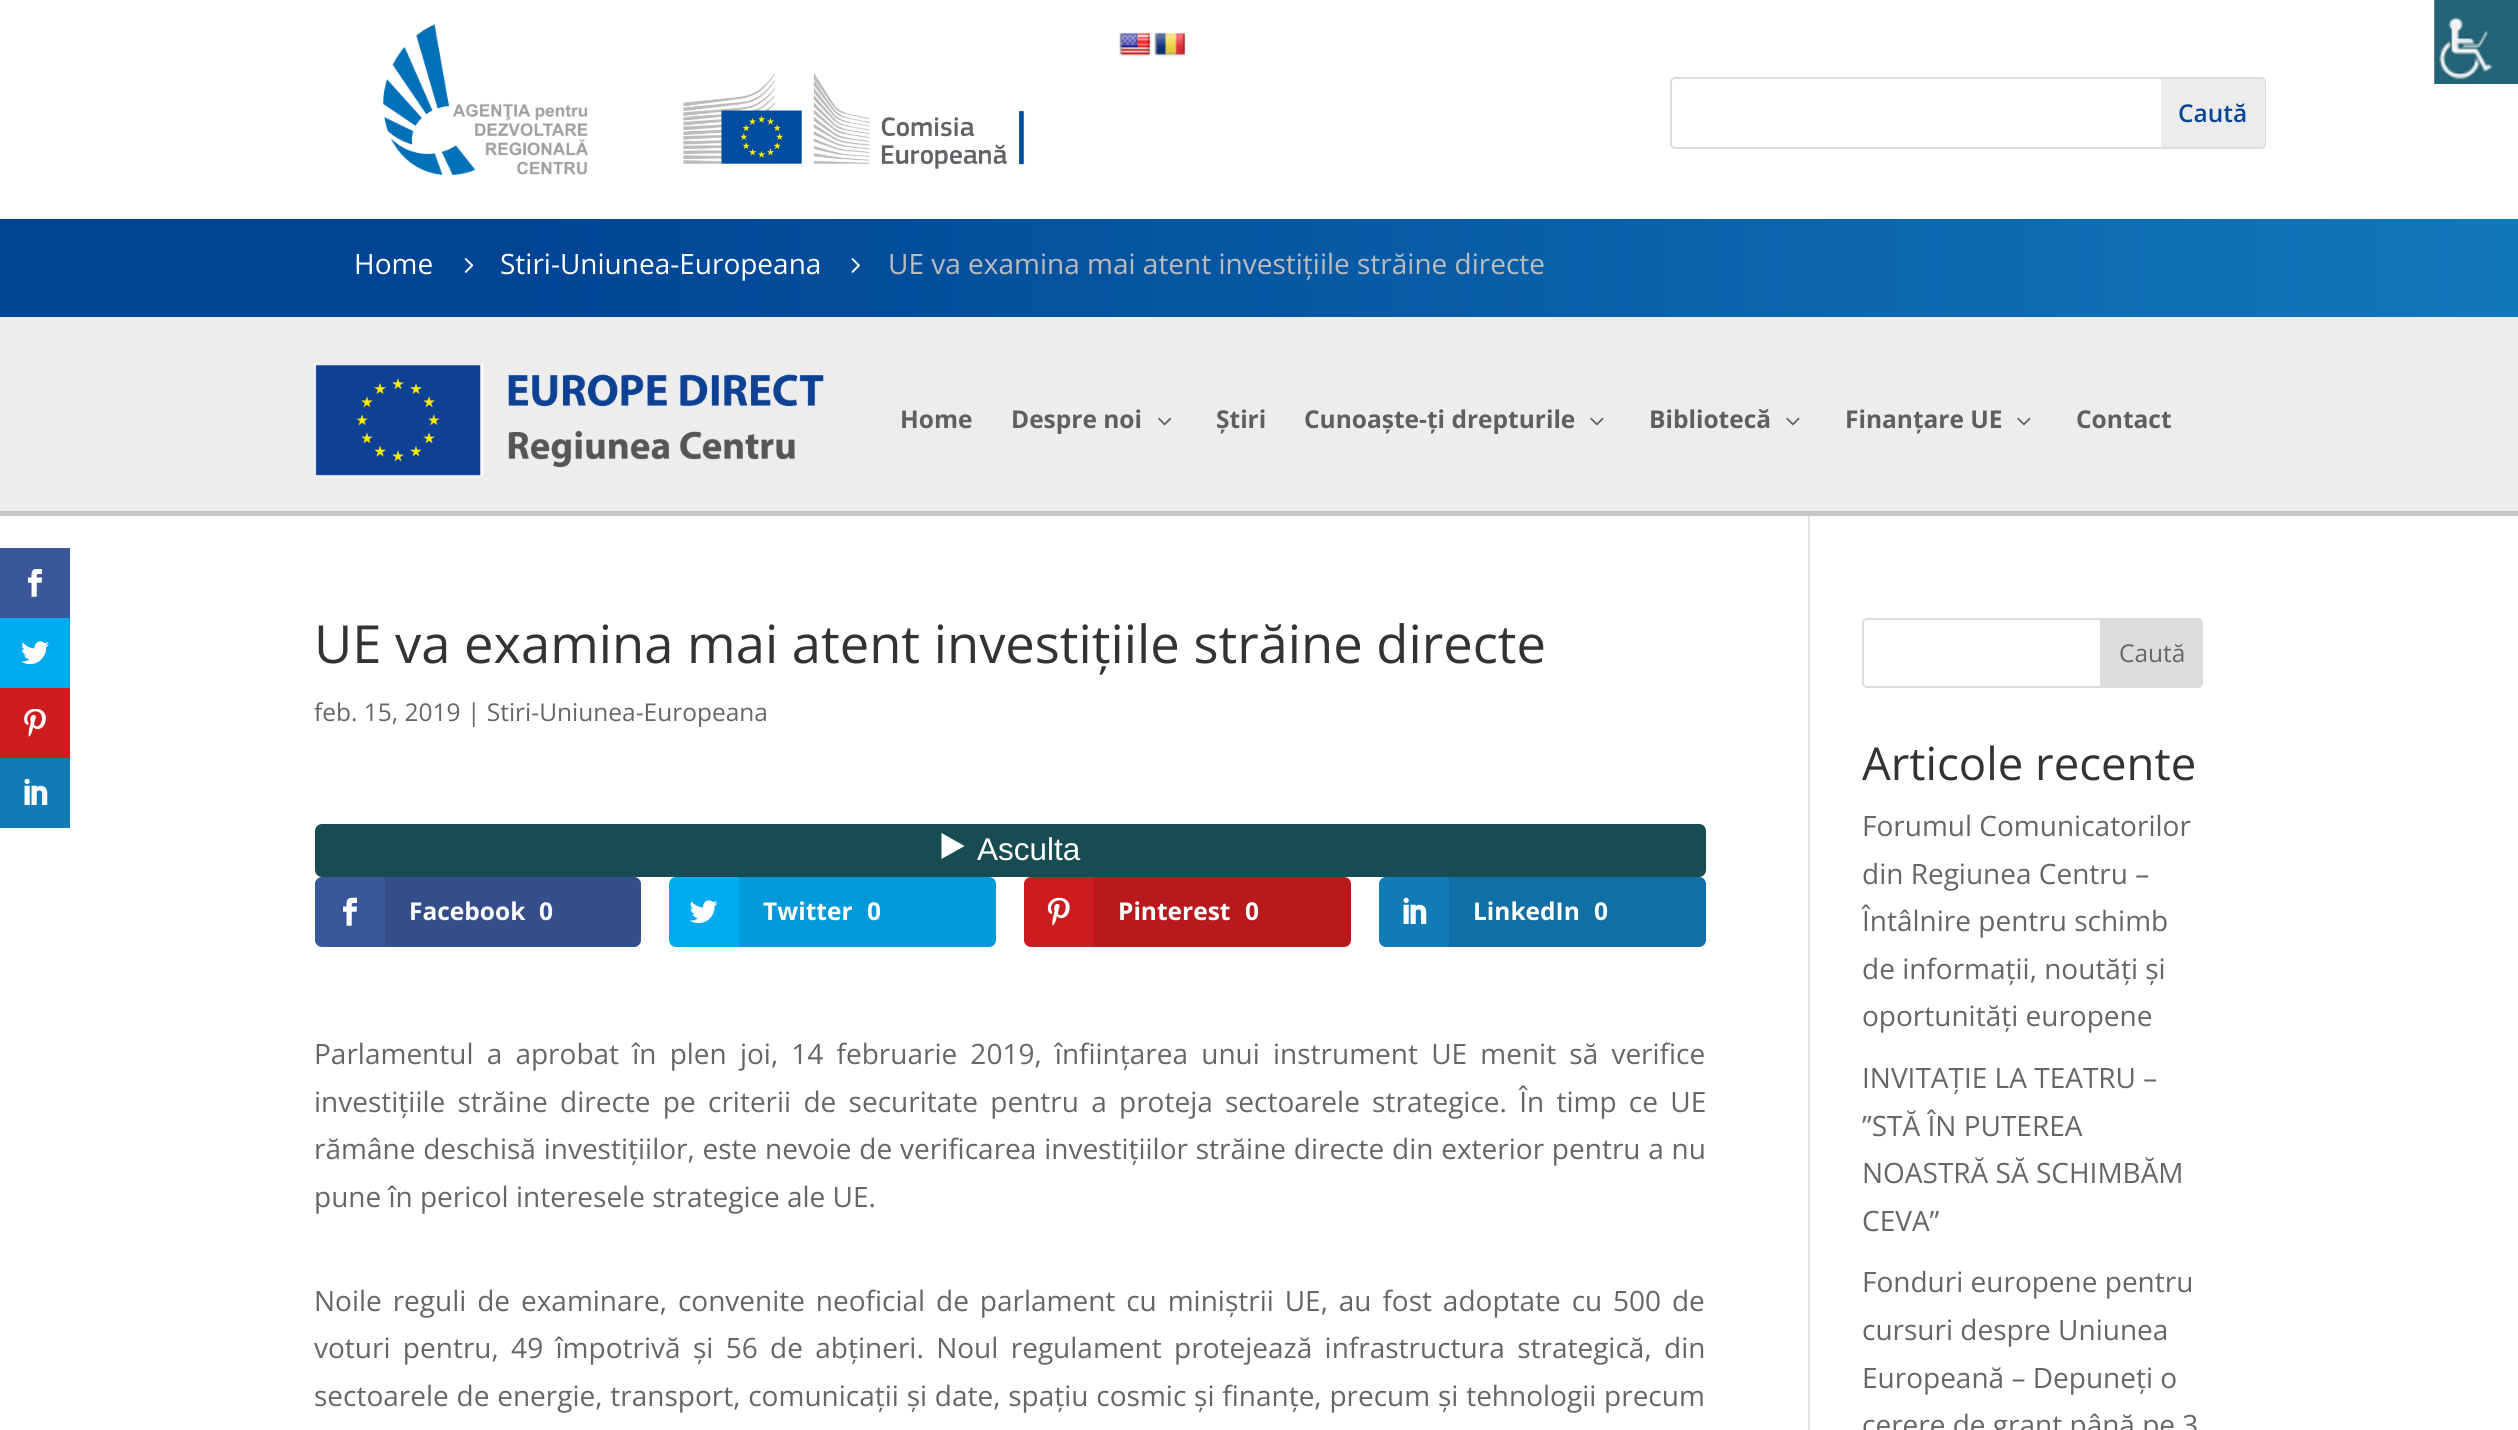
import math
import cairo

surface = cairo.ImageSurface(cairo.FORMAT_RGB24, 2518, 1430)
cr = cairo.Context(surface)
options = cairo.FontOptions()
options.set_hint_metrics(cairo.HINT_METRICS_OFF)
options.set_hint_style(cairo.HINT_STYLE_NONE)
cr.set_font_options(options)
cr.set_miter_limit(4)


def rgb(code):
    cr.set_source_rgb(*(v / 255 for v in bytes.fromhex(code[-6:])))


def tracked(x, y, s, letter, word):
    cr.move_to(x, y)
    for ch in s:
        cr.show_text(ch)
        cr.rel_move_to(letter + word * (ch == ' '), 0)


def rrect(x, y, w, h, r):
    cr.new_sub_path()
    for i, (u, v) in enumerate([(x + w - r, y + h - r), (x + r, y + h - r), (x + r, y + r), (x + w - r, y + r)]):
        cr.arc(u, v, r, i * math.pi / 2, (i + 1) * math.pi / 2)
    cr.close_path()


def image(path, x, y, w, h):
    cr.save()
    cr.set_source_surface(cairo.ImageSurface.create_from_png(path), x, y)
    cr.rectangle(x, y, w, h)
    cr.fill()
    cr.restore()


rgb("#ffffff")
cr.paint()
image("img/1.png", 2434, 0, 84, 84)
rgb("#3a579a")
cr.rectangle(0, 548, 70, 70)
cr.fill()
image("img/2.png", 28, 569, 15, 28)
rgb("#00abf0")
cr.rectangle(0, 618, 70, 70)
cr.fill()
image("img/3.png", 21, 641, 28, 24)
rgb("#cd1c1f")
cr.rectangle(0, 688, 70, 70)
cr.fill()
image("img/4.png", 24, 709, 22, 28)
rgb("#127bb6")
cr.rectangle(0, 758, 70, 70)
cr.fill()
image("img/5.png", 24, 779, 24, 26)
image("img/6.png", 383, 24, 205, 151)
image("img/7.png", 1119, 32, 31, 25)
image("img/8.png", 1154, 32, 31, 25)
image("img/9.png", 683, 73, 343, 96)
rrect(1671, 78, 594, 70, 4)
rgb("#dddddd")
cr.stroke()
rgb("#ececec")
cr.new_path()
cr.move_to(2161, 79)
cr.line_to(2261, 79)
cr.curve_to(2263, 79, 2265, 81, 2265, 83)
cr.line_to(2265, 143)
cr.curve_to(2265, 145, 2263, 147, 2261, 147)
cr.line_to(2161, 147)
cr.close_path()
cr.fill()
gradient = cairo.LinearGradient(0, 268, 2518, 268)
gradient.add_color_stop_rgba(0.2, 0, 0.267, 0.58, 1)
gradient.add_color_stop_rgba(1, 0.067, 0.467, 0.733, 1)
cr.set_source(gradient)
cr.rectangle(0, 219, 2518, 98)
cr.fill()
image("img/10.png", 464, 258, 10, 15)
image("img/11.png", 851, 258, 9, 15)
rgb("#ededed")
cr.rectangle(0, 317, 2518, 194)
cr.fill()
rgb("#c6c6c6")
cr.rectangle(0, 511, 2518, 5)
cr.fill()
image("img/12.png", 315, 364, 509, 112)
image("img/13.png", 1158, 417, 14, 9)
image("img/14.png", 1590, 417, 14, 9)
image("img/14.png", 1786, 417, 14, 9)
image("img/14.png", 2017, 417, 14, 9)
rgb("#e2e2e2")
cr.rectangle(1808, 516, 2, 914)
cr.fill()
rgb("#184c53")
rrect(315, 824, 1391, 53, 7)
cr.fill()
rgb("#ffffff")
cr.new_path()
cr.move_to(941.5, 833)
cr.line_to(941.5, 859)
cr.line_to(964.5, 846)
cr.close_path()
cr.fill()
rgb("#3a579a")
rrect(315, 877, 326, 70, 7)
cr.fill()
image("img/15.png", 343, 897, 15, 29)
cr.set_source_rgba(0, 0, 0, 0.1)
cr.new_path()
cr.move_to(385, 877)
cr.line_to(634, 877)
cr.curve_to(638, 877, 641, 880, 641, 884)
cr.line_to(641, 940)
cr.curve_to(641, 944, 638, 947, 634, 947)
cr.line_to(385, 947)
cr.close_path()
cr.fill()
rgb("#00abf0")
rrect(669, 877, 327, 70, 7)
cr.fill()
image("img/16.png", 689, 900, 29, 24)
cr.set_source_rgba(0, 0, 0, 0.1)
cr.new_path()
cr.move_to(739, 877)
cr.line_to(989, 877)
cr.curve_to(993, 877, 996, 880, 996, 884)
cr.line_to(996, 940)
cr.curve_to(996, 944, 993, 947, 989, 947)
cr.line_to(739, 947)
cr.close_path()
cr.fill()
rgb("#cd1c1f")
rrect(1024, 877, 327, 70, 7)
cr.fill()
image("img/17.png", 1047, 897, 23, 29)
cr.set_source_rgba(0, 0, 0, 0.1)
cr.new_path()
cr.move_to(1094, 877)
cr.line_to(1344, 877)
cr.curve_to(1348, 877, 1351, 880, 1351, 884)
cr.line_to(1351, 940)
cr.curve_to(1351, 944, 1348, 947, 1344, 947)
cr.line_to(1094, 947)
cr.close_path()
cr.fill()
rgb("#127bb6")
rrect(1379, 877, 327, 70, 7)
cr.fill()
image("img/18.png", 1403, 897, 24, 27)
cr.set_source_rgba(0, 0, 0, 0.1)
cr.new_path()
cr.move_to(1449, 877)
cr.line_to(1699, 877)
cr.curve_to(1703, 877, 1706, 880, 1706, 884)
cr.line_to(1706, 940)
cr.curve_to(1706, 944, 1703, 947, 1699, 947)
cr.line_to(1449, 947)
cr.close_path()
cr.fill()
rrect(1863, 619, 339, 68, 4)
rgb("#dddddd")
cr.stroke()
cr.new_path()
cr.move_to(2101, 619)
cr.line_to(2198, 619)
cr.curve_to(2200, 619, 2202, 621, 2202, 623)
cr.line_to(2202, 683)
cr.curve_to(2202, 685, 2200, 687, 2198, 687)
cr.line_to(2101, 687)
cr.close_path()
cr.fill_preserve()
cr.stroke()
cr.select_font_face("Open Sans SemiBold")
cr.set_font_size(24.5)
rgb("#034695")
cr.move_to(2178, 122)
cr.show_text("Caută")
cr.select_font_face("Open Sans")
cr.set_font_size(28)
rgb("#ffffff")
cr.move_to(354, 274)
cr.show_text("Home")
cr.move_to(500, 274)
cr.show_text("Stiri-Uniunea-Europeana")
rgb("#bcbcbc")
cr.move_to(888, 274)
cr.show_text("UE va examina mai atent investițiile străine directe")
cr.select_font_face("Open Sans", cairo.FONT_SLANT_NORMAL, cairo.FONT_WEIGHT_BOLD)
cr.set_font_size(24.5)
rgb("#5f5f5f")
for x, y, s in [
    (900, 428, "Home"),
    (1011, 428, "Despre noi"),
    (1216, 428, "Știri"),
    (1304, 428, "Cunoaște-ți drepturile"),
    (1649, 428, "Bibliotecă"),
    (1845, 428, "Finanțare UE"),
    (2076, 428, "Contact"),
]:
    cr.move_to(x, y)
    cr.show_text(s)
cr.select_font_face("Open Sans")
cr.set_font_size(52.5)
rgb("#333333")
cr.move_to(314, 663)
cr.show_text("UE va examina mai atent investițiile străine directe")
cr.set_font_size(24.5)
rgb("#666666")
cr.move_to(314, 721)
cr.show_text("feb. 15, 2019 | Stiri-Uniunea-Europeana")
cr.select_font_face("Liberation Sans")
cr.set_font_size(31.5)
rgb("#ffffff")
cr.move_to(977, 860)
cr.show_text("Asculta")
cr.select_font_face("Open Sans", cairo.FONT_SLANT_NORMAL, cairo.FONT_WEIGHT_BOLD)
cr.set_font_size(24.5)
for x, y, s in [
    (409, 920, "Facebook"),
    (539, 920, "0"),
    (763, 920, "Twitter"),
    (867, 920, "0"),
    (1118, 920, "Pinterest"),
    (1245, 920, "0"),
    (1473, 920, "LinkedIn"),
    (1594, 920, "0"),
]:
    cr.move_to(x, y)
    cr.show_text(s)
cr.select_font_face("Open Sans")
cr.set_font_size(28)
rgb("#666666")
tracked(314, 1064, "Parlamentul a aprobat în plen joi, 14 februarie 2019, înființarea unui instrument UE menit să verifice", 0, 5.9)
tracked(314, 1112, "investițiile străine directe pe criterii de securitate pentru a proteja sectoarele strategice. În timp ce UE", 0, 5)
tracked(314, 1159, "rămâne deschisă investițiilor, este nevoie de verificarea investițiilor străine directe din exterior pentru a nu", 0, 0.5)
cr.move_to(314, 1207)
cr.show_text("pune în pericol interesele strategice ale UE.")
tracked(314, 1311, "Noile reguli de examinare, convenite neoficial de parlament cu miniștrii UE, au fost adoptate cu 500 de", 0, 3.6)
tracked(314, 1358, "voturi pentru, 49 împotrivă și 56 de abțineri. Noul regulament protejează infrastructura strategică, din", 0, 5.1)
tracked(314, 1406, "sectoarele de energie, transport, comunicații și date, spațiu cosmic și finanțe, precum și tehnologii precum", 0, 0.5)
cr.set_font_size(24.5)
cr.move_to(2119, 662)
cr.show_text("Caută")
cr.set_font_size(45.5)
rgb("#333333")
cr.move_to(1862, 780)
cr.show_text("Articole recente")
cr.set_font_size(28)
rgb("#666666")
for x, y, s in [
    (1862, 836, "Forumul Comunicatorilor"),
    (1862, 884, "din Regiunea Centru –"),
    (1862, 931, "Întâlnire pentru schimb"),
    (1862, 979, "de informații, noutăți și"),
    (1862, 1026, "oportunități europene"),
    (1862, 1088, "INVITAȚIE LA TEATRU –"),
    (1862, 1136, "”STĂ ÎN PUTEREA"),
    (1862, 1183, "NOASTRĂ SĂ SCHIMBĂM"),
    (1862, 1231, "CEVA”"),
    (1862, 1292, "Fonduri europene pentru"),
    (1862, 1340, "cursuri despre Uniunea"),
    (1862, 1388, "Europeană – Depuneți o"),
    (1862, 1435, "cerere de grant până pe 3"),
]:
    cr.move_to(x, y)
    cr.show_text(s)
surface.write_to_png("page.png")
